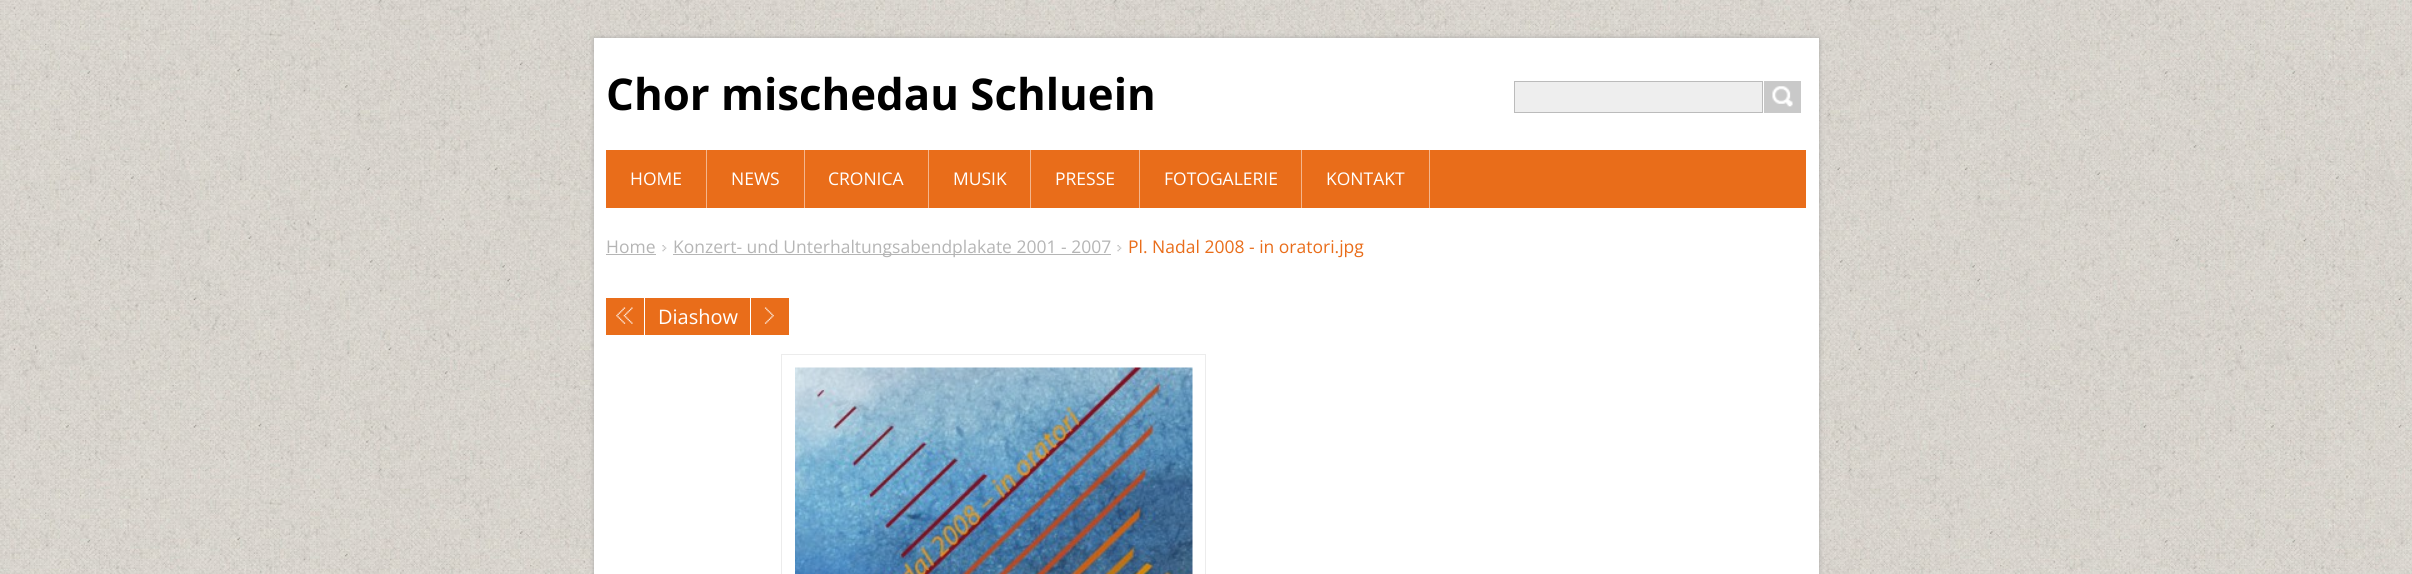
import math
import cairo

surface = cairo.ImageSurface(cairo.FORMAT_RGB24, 2412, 574)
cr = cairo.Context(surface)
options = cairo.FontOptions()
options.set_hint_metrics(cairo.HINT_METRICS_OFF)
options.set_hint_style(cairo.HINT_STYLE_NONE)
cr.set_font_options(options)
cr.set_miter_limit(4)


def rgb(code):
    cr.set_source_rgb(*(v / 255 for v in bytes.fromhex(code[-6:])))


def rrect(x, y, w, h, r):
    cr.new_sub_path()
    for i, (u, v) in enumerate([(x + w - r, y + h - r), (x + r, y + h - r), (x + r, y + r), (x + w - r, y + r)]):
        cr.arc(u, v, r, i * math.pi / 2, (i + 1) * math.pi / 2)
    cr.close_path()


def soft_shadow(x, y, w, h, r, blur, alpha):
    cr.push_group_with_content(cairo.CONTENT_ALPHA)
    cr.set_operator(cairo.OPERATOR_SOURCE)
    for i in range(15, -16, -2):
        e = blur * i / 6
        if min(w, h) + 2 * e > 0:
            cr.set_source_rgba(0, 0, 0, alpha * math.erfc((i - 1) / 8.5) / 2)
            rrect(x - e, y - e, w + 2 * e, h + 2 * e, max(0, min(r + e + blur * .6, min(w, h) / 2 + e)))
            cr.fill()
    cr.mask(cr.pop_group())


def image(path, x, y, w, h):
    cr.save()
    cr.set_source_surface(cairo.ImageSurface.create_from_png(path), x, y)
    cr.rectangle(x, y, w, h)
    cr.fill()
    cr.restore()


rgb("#ffffff")
cr.paint()
image("img/1.png", 0, 0, 2412, 574)
rgb("#989898")
soft_shadow(594, 38, 1225, 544, 0, 2.5, 0.75)
rgb("#ffffff")
cr.rectangle(594, 38, 1225, 536)
cr.fill()
rgb("#eeeeee")
cr.rectangle(1514.5, 81.5, 248, 31)
cr.fill_preserve()
rgb("#bbbbbb")
cr.set_line_width(1)
cr.stroke()
rgb("#c9c9c9")
cr.rectangle(1764, 81, 37, 32)
cr.fill()
image("img/2.png", 1772, 86, 21, 21)
for x, y, w, h, color in [
    (606, 150, 1200, 58, "#e96d1a"),
    (706, 150, 1, 58, "#f4b68d"),
    (804, 150, 1, 58, "#f4b68d"),
    (928, 150, 1, 58, "#f4b68d"),
    (1030, 150, 1, 58, "#f4b68d"),
    (1139, 150, 1, 58, "#f4b68d"),
    (1301, 150, 1, 58, "#f4b68d"),
    (1429, 150, 1, 58, "#f4b68d"),
    (606, 254, 50, 1, "#b5b5b5"),
]:
    rgb(color)
    cr.rectangle(x, y, w, h)
    cr.fill()
image("img/3.png", 662, 245, 5, 7)
cr.rectangle(673, 254, 438, 1)
cr.fill()
image("img/3.png", 1117, 245, 5, 7)
rgb("#e96d1a")
cr.rectangle(606, 298, 38, 37)
cr.fill()
image("img/4.png", 616, 307, 17, 17)
cr.rectangle(645, 298, 105, 37)
cr.fill()
cr.rectangle(751, 298, 38, 37)
cr.fill()
image("img/5.png", 764, 307, 10, 17)
cr.rectangle(781.5, 354.5, 424, 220)
rgb("#ececec")
cr.stroke()
image("img/6.png", 795, 367, 398, 207)
cr.select_font_face("Open Sans", cairo.FONT_SLANT_NORMAL, cairo.FONT_WEIGHT_BOLD)
cr.set_font_size(43.75)
rgb("#000000")
cr.move_to(606, 110)
cr.show_text("Chor mischedau Schluein")
cr.select_font_face("Open Sans")
cr.set_font_size(17.5)
rgb("#ffffff")
for x, y, s in [
    (630, 185, "HOME"),
    (731, 185, "NEWS"),
    (828, 185, "CRONICA"),
    (953, 185, "MUSIK"),
    (1055, 185, "PRESSE"),
    (1164, 185, "FOTOGALERIE"),
    (1326, 185, "KONTAKT"),
]:
    cr.move_to(x, y)
    cr.show_text(s)
rgb("#b5b5b5")
cr.move_to(606, 253)
cr.show_text("Home")
cr.move_to(673, 253)
cr.show_text("Konzert- und Unterhaltungsabendplakate 2001 - 2007")
rgb("#e96d1a")
cr.move_to(1128, 253)
cr.show_text("Pl. Nadal 2008 - in oratori.jpg")
cr.set_font_size(20)
rgb("#ffffff")
cr.move_to(658, 324)
cr.show_text("Diashow")
surface.write_to_png("page.png")
